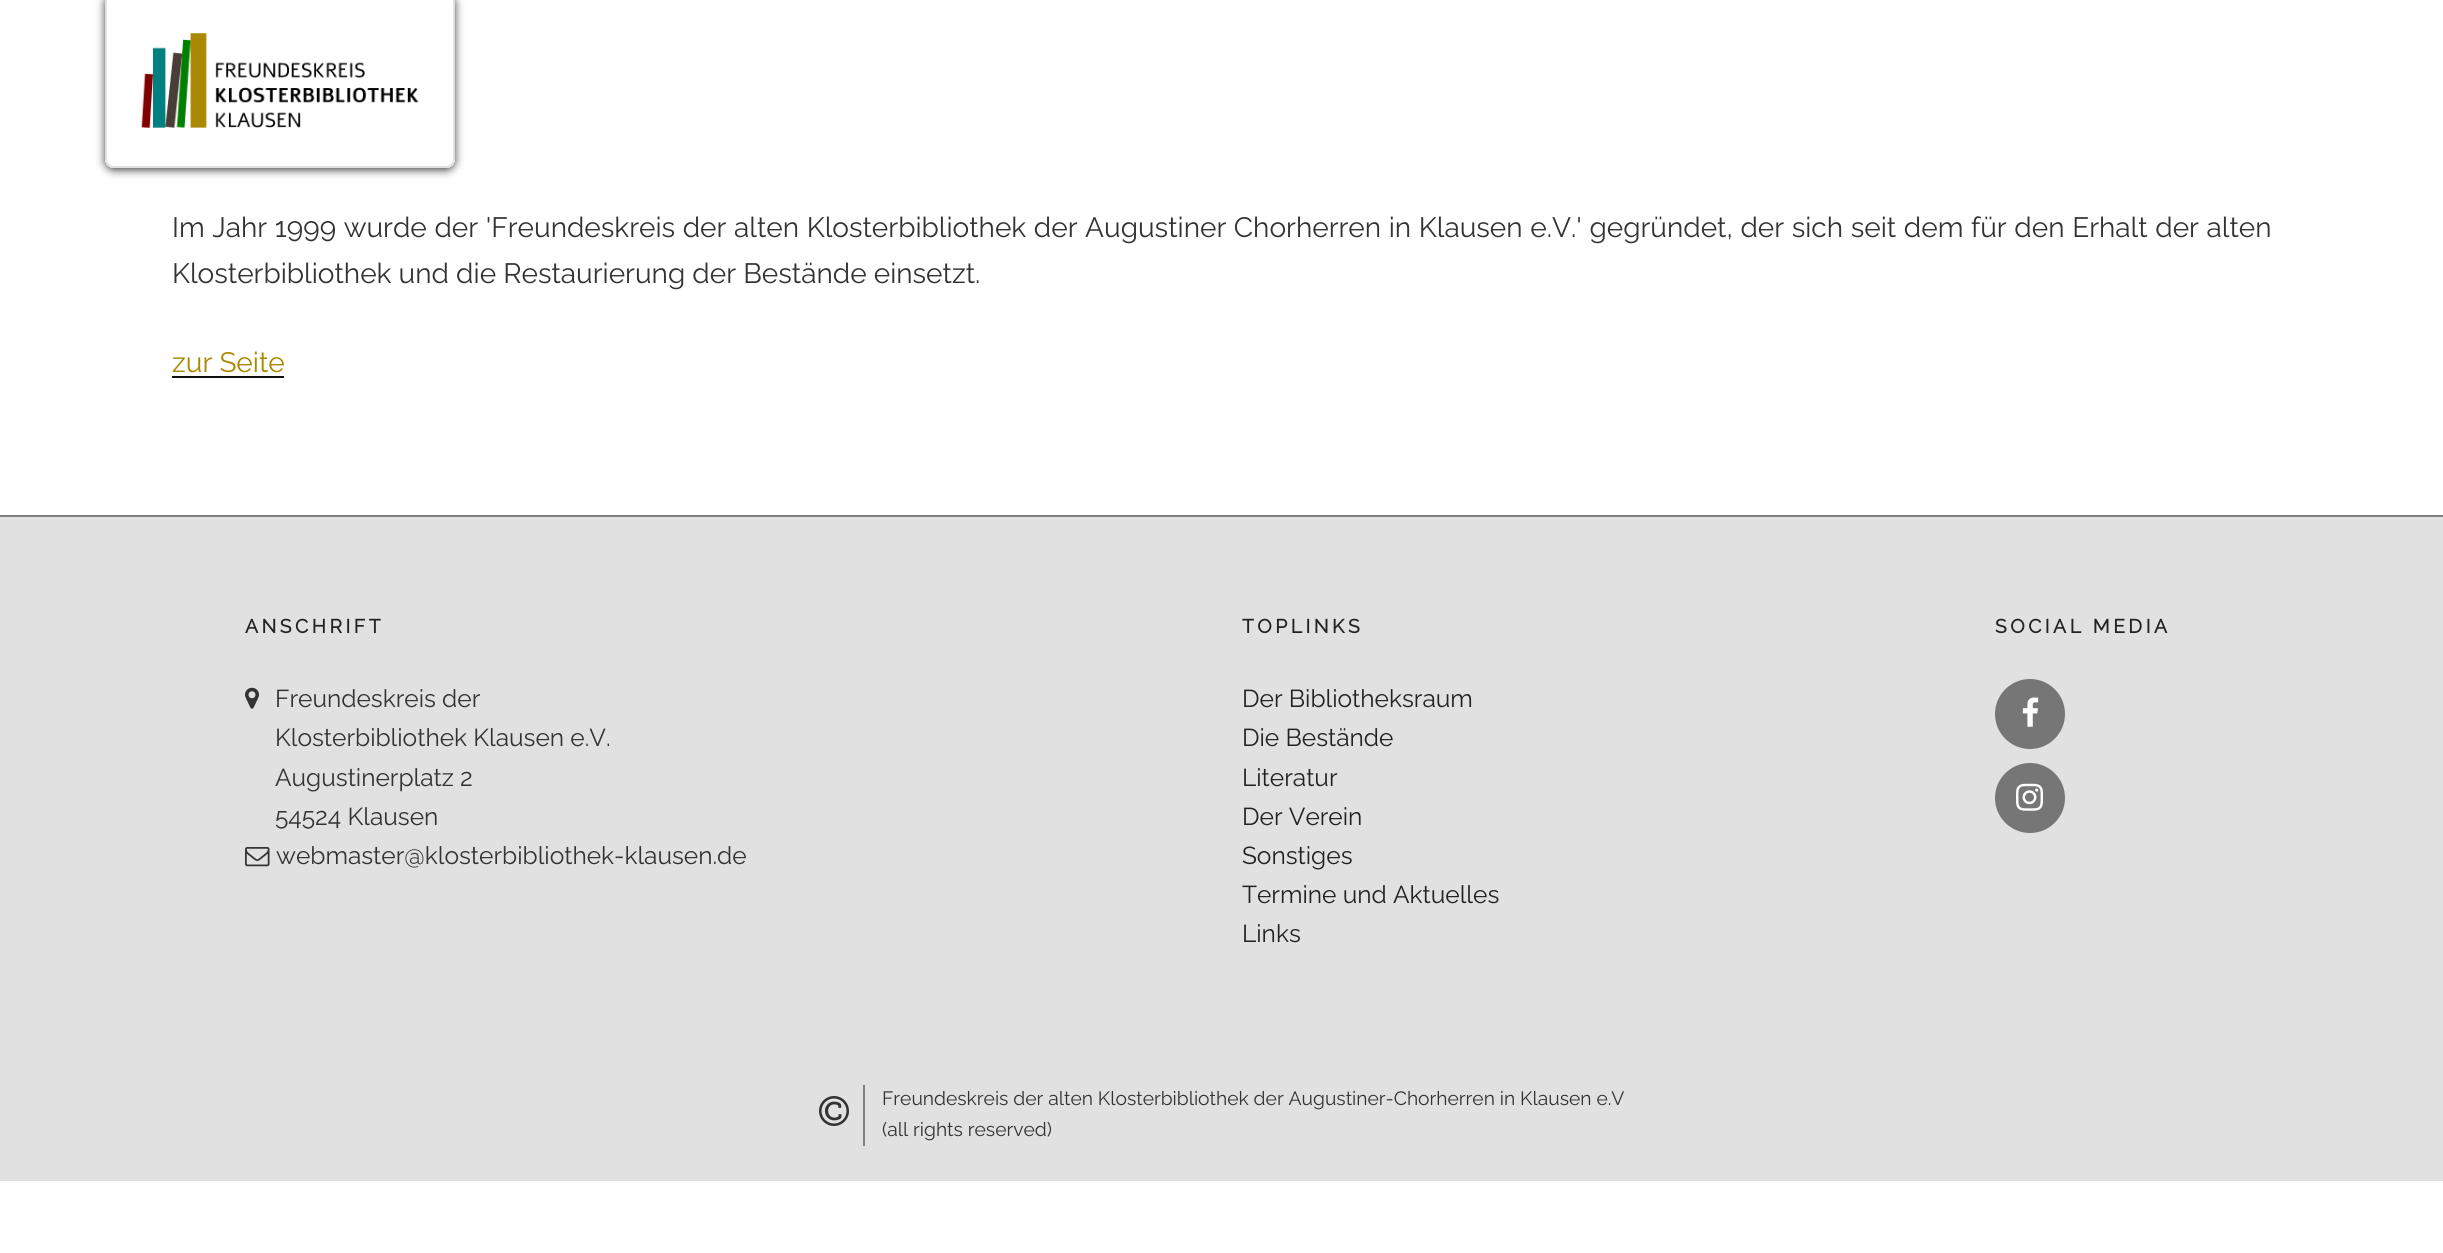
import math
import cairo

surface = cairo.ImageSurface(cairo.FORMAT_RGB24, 2443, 1253)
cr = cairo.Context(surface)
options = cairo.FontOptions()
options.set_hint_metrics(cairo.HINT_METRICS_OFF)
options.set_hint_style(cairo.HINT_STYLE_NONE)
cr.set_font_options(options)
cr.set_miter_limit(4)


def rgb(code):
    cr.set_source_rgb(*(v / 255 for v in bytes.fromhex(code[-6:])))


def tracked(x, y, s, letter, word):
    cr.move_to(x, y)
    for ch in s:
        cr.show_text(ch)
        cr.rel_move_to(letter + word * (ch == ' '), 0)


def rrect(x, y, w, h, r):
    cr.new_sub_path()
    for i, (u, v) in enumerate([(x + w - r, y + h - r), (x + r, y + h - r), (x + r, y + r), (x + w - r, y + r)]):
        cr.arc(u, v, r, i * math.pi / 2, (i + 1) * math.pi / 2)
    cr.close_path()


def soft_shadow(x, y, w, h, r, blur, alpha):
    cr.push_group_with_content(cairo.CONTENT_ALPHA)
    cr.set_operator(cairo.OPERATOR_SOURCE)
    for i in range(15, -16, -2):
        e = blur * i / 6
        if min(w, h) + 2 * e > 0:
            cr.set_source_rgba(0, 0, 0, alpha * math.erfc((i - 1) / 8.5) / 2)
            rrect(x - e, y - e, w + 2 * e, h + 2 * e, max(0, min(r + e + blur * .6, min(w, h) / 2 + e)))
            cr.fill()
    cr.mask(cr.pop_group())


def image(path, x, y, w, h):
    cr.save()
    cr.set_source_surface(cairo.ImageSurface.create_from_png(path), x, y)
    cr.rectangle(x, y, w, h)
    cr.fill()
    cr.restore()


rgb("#ffffff")
cr.paint()
cr.save()
cr.set_fill_rule(cairo.FILL_RULE_EVEN_ODD)
cr.new_path()
cr.move_to(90, 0)
cr.line_to(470, 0)
cr.line_to(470, 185)
cr.line_to(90, 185)
cr.close_path()
cr.move_to(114, -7)
cr.line_to(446, -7)
cr.curve_to(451, -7, 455, -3, 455, 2)
cr.line_to(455, 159)
cr.curve_to(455, 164, 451, 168, 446, 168)
cr.line_to(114, 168)
cr.curve_to(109, 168, 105, 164, 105, 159)
cr.line_to(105, 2)
cr.curve_to(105, -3, 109, -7, 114, -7)
cr.close_path()
cr.clip()
rgb("#000000")
soft_shadow(105, -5, 350, 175, 9, 4.5, 0.75)
cr.restore()
cr.set_source_rgba(1, 1, 1, 0.9)
rrect(105, -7, 350, 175, 9)
cr.fill()
image("img/1.png", 141, 33, 278, 95)
rrect(106, -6, 348, 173, 8)
rgb("#e1e1e1")
cr.stroke()
for x, y, w, h, color in [
    (172, 376, 112, 2, "#0f0f0f"),
    (0, 517, 2443, 664, "#e1e1e1"),
    (0, 515, 2443, 2, "#808080"),
]:
    rgb(color)
    cr.rectangle(x, y, w, h)
    cr.fill()
image("img/2.png", 245, 687, 14, 22)
image("img/3.png", 245, 847, 25, 20)
rgb("#767676")
cr.arc(2030, 714, 35, 0, 2 * math.pi)
cr.fill()
image("img/4.png", 2022, 697, 17, 30)
cr.arc(2030, 798, 35, 0, 2 * math.pi)
cr.fill()
image("img/5.png", 2016, 783, 27, 28)
image("img/6.png", 819, 1096, 30, 30)
rgb("#808080")
cr.rectangle(863, 1085, 2, 61)
cr.fill()
cr.select_font_face("Raleway Thin")
cr.set_font_size(28)
rgb("#333333")
tracked(172, 237, "Im Jahr 1999 wurde der 'Freundeskreis der alten Klosterbibliothek der Augustiner Chorherren in Klausen e.V.' gegründet, der sich seit dem für den Erhalt der alten", 0, 0.5)
cr.move_to(172, 283)
cr.show_text("Klosterbibliothek und die Restaurierung der Bestände einsetzt.")
rgb("#aa8800")
cr.move_to(172, 372)
cr.show_text("zur Seite")
cr.select_font_face("Raleway", cairo.FONT_SLANT_NORMAL, cairo.FONT_WEIGHT_BOLD)
cr.set_font_size(19.25)
rgb("#222222")
tracked(245, 633, "ANSCHRIFT", 3.5, 0)
cr.select_font_face("Raleway Thin")
cr.set_font_size(24.5)
rgb("#333333")
for x, y, s in [
    (275, 707, "Freundeskreis der"),
    (275, 746, "Klosterbibliothek Klausen e.V."),
    (275, 786, "Augustinerplatz 2"),
    (275, 825, "54524 Klausen"),
    (276, 864, "webmaster@klosterbibliothek-klausen.de"),
]:
    cr.move_to(x, y)
    cr.show_text(s)
cr.select_font_face("Raleway", cairo.FONT_SLANT_NORMAL, cairo.FONT_WEIGHT_BOLD)
cr.set_font_size(19.25)
rgb("#222222")
tracked(1242, 633, "TOPLINKS", 3.5, 0)
cr.select_font_face("Raleway Thin")
cr.set_font_size(24.5)
for x, y, s in [
    (1242, 707, "Der Bibliotheksraum"),
    (1242, 746, "Die Bestände"),
    (1242, 786, "Literatur"),
    (1242, 825, "Der Verein"),
    (1242, 864, "Sonstiges"),
    (1242, 903, "Termine und Aktuelles"),
    (1242, 942, "Links"),
]:
    cr.move_to(x, y)
    cr.show_text(s)
cr.select_font_face("Raleway", cairo.FONT_SLANT_NORMAL, cairo.FONT_WEIGHT_BOLD)
cr.set_font_size(19.25)
tracked(1995, 633, "SOCIAL MEDIA", 3.5, 0)
cr.select_font_face("Raleway Thin")
rgb("#333333")
cr.move_to(882, 1105)
cr.show_text("Freundeskreis der alten Klosterbibliothek der Augustiner-Chorherren in Klausen e.V")
cr.move_to(882, 1136)
cr.show_text("(all rights reserved)")
surface.write_to_png("page.png")
